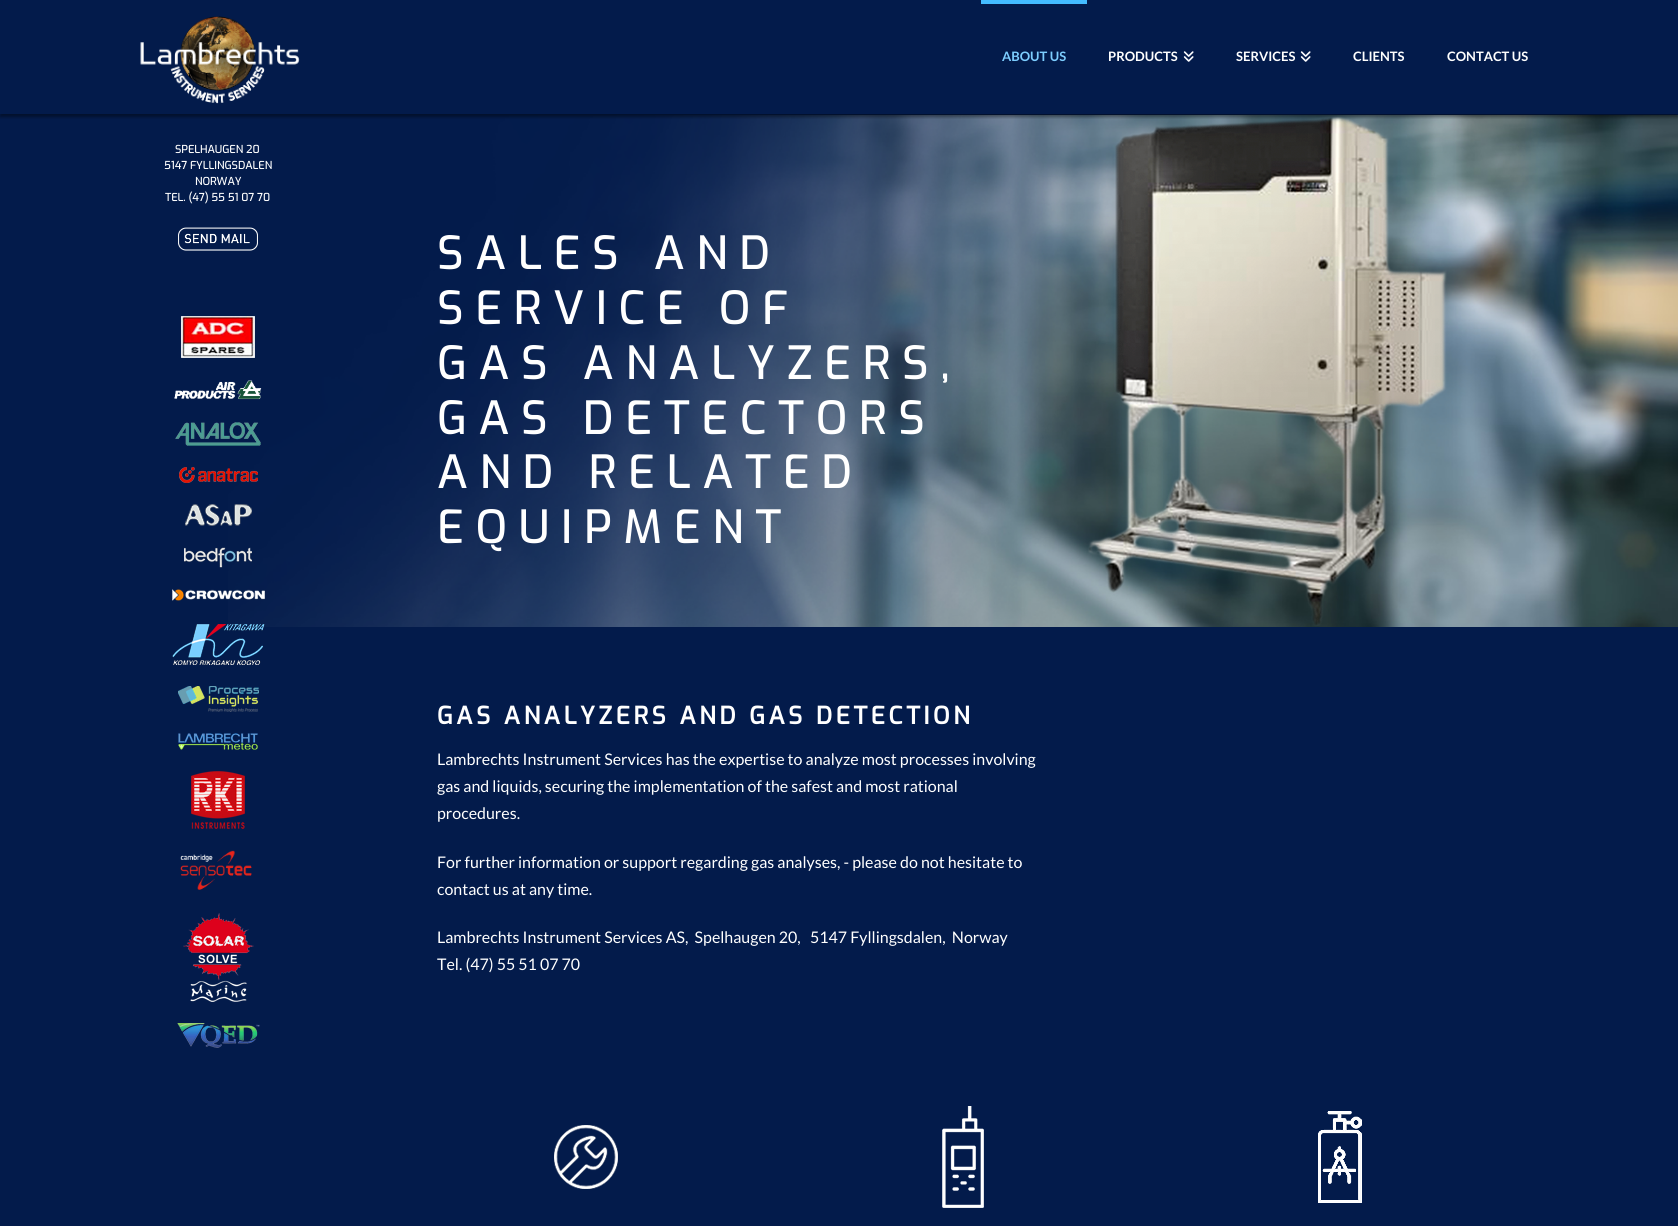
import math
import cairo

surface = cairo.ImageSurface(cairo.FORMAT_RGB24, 1678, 1226)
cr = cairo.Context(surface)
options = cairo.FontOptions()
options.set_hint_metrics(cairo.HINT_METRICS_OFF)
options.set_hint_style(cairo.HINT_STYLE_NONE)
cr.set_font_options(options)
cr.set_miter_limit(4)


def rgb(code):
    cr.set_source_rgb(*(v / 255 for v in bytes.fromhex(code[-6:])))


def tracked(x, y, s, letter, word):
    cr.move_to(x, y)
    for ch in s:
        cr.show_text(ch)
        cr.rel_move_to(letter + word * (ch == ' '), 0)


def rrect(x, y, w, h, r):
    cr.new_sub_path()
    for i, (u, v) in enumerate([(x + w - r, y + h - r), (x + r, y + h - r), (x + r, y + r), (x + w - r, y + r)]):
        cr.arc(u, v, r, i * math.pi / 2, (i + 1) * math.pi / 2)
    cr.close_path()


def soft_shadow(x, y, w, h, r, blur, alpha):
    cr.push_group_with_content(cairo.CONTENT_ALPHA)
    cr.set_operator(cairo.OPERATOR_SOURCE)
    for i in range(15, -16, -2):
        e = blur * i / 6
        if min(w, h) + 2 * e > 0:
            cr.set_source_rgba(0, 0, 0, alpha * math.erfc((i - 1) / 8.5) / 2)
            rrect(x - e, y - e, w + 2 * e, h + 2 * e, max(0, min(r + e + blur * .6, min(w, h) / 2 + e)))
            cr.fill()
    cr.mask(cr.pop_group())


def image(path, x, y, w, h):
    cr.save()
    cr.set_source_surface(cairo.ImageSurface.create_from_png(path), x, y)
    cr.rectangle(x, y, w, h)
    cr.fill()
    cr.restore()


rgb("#031b4b")
cr.paint()
image("img/18.png", 228, 115, 1450, 512)
image("img/19.png", 1088, 116, 359, 510)
cr.save()
cr.rectangle(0, 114, 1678, 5)
cr.clip()
rgb("#000000")
soft_shadow(0, 3, 1678, 114, 0, 1.5, 0.4)
cr.restore()
image("img/1.png", 140, 16, 160, 88)
rgb("#44bcff")
cr.rectangle(981, 0, 106, 4)
cr.fill()
image("img/2.png", 1183, 51, 11, 11)
image("img/2.png", 1300, 51, 11, 11)
image("img/3.png", 178, 227, 80, 24)
image("img/4.png", 181, 316, 74, 42)
image("img/5.png", 174, 380, 88, 20)
image("img/6.png", 175, 422, 86, 24)
image("img/7.png", 179, 467, 79, 16)
image("img/8.png", 185, 504, 67, 22)
image("img/9.png", 184, 547, 68, 21)
image("img/10.png", 172, 589, 93, 12)
image("img/11.png", 172, 624, 93, 41)
image("img/12.png", 178, 686, 81, 26)
image("img/13.png", 178, 733, 80, 17)
image("img/14.png", 191, 771, 54, 58)
image("img/15.png", 180, 850, 72, 40)
image("img/16.png", 183, 913, 71, 89)
image("img/17.png", 177, 1023, 83, 25)
image("img/20.png", 554, 1125, 64, 64)
image("img/21.png", 942, 1106, 42, 102)
image("img/22.png", 1318, 1111, 44, 92)
cr.select_font_face("Lato", cairo.FONT_SLANT_NORMAL, cairo.FONT_WEIGHT_BOLD)
cr.set_font_size(13)
rgb("#7dceff")
cr.move_to(1002, 61)
cr.show_text("ABOUT US")
rgb("#ffffff")
for x, y, s in [
    (1108, 61, "PRODUCTS"),
    (1236, 61, "SERVICES"),
    (1353, 61, "CLIENTS"),
    (1447, 61, "CONTACT US"),
]:
    cr.move_to(x, y)
    cr.show_text(s)
cr.select_font_face("Exo Medium")
cr.set_font_size(11)
for x, y, s in [
    (175, 153, "SPELHAUGEN 20"),
    (164, 169, "5147 FYLLINGSDALEN"),
    (195, 185, "NORWAY"),
    (165, 201, "TEL. (47) 55 51 07 70"),
]:
    tracked(x, y, s, -0.1, 0)
cr.set_font_size(45.75)
for x, y, s in [
    (437, 269, "SALES AND"),
    (437, 324, "SERVICE OF"),
    (437, 379, "GAS ANALYZERS,"),
    (437, 434, "GAS DETECTORS"),
    (437, 488, "AND RELATED"),
    (437, 543, "EQUIPMENT"),
]:
    tracked(x, y, s, 11.5, 0)
cr.select_font_face("Exo", cairo.FONT_SLANT_NORMAL, cairo.FONT_WEIGHT_BOLD)
cr.set_font_size(24)
tracked(437, 724, "GAS ANALYZERS AND GAS DETECTION", 3.6, 0)
cr.select_font_face("Lato")
cr.set_font_size(16)
for x, y, s in [
    (437, 765, "Lambrechts Instrument Services has the expertise to analyze most processes involving"),
    (437, 792, "gas and liquids, securing the implementation of the safest and most rational"),
    (437, 819, "procedures."),
    (437, 868, "For further information or support regarding gas analyses, - please do not hesitate to"),
    (437, 895, "contact us at any time."),
    (437, 943, "Lambrechts Instrument Services AS,  Spelhaugen 20,   5147 Fyllingsdalen,  Norway"),
    (437, 970, "Tel. (47) 55 51 07 70"),
]:
    cr.move_to(x, y)
    cr.show_text(s)
surface.write_to_png("page.png")
